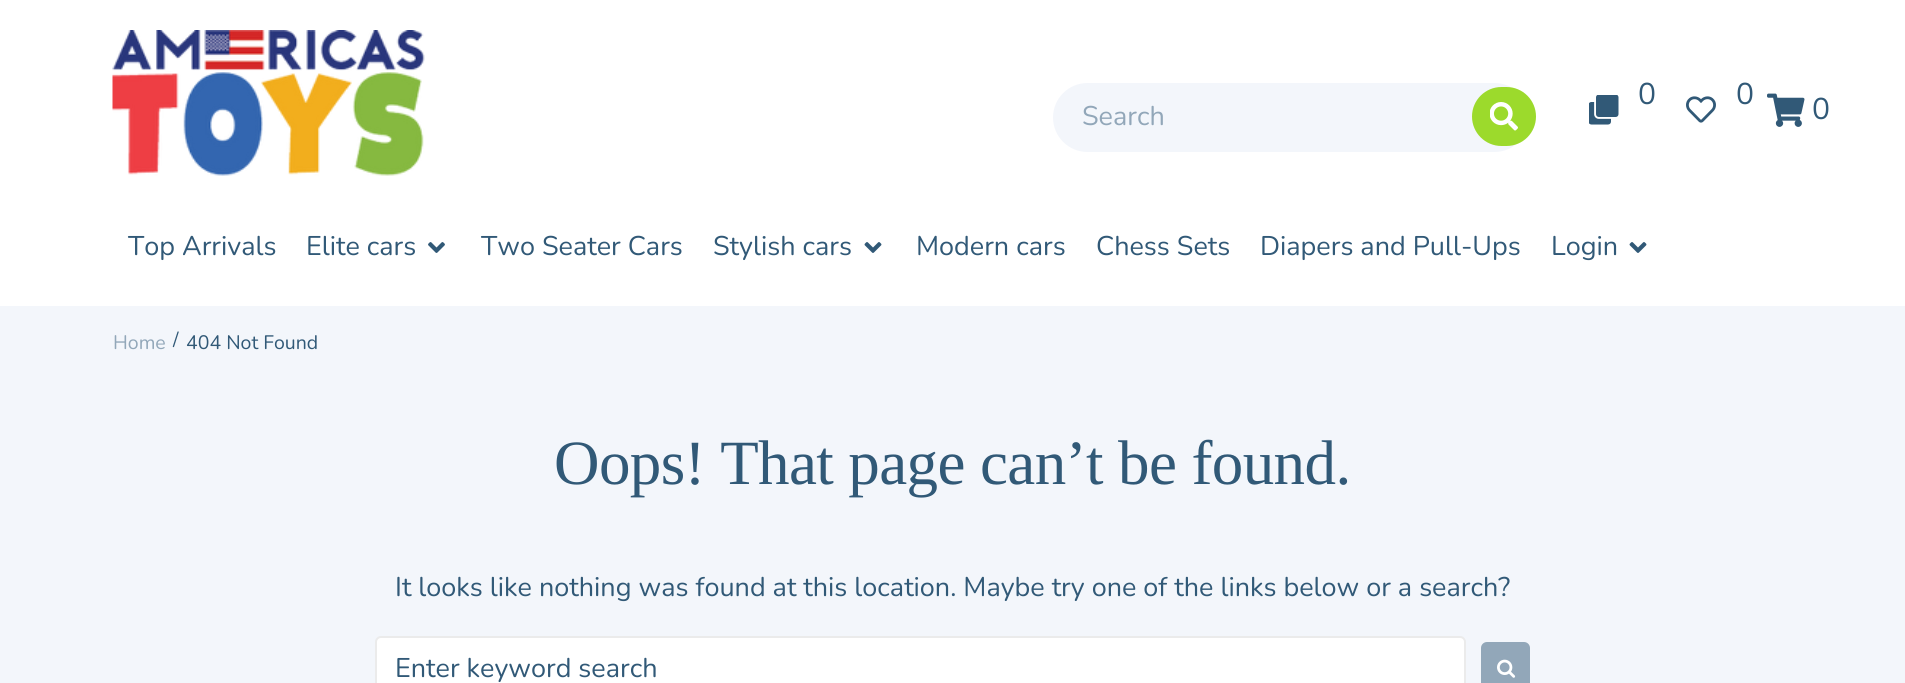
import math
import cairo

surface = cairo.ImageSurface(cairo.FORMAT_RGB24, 1905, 683)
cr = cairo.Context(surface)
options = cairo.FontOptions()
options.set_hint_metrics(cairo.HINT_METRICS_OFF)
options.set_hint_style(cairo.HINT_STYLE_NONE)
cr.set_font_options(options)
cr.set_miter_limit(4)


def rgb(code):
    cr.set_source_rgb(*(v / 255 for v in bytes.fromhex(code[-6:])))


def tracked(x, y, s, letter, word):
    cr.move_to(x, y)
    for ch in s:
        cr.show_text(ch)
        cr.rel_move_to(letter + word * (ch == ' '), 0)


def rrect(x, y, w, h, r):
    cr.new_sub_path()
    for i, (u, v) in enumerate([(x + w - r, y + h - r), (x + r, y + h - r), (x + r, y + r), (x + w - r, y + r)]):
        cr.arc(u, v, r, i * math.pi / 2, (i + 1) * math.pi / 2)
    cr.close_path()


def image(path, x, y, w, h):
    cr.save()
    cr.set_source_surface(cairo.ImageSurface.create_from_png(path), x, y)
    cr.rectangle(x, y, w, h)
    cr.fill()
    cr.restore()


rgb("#f3f6fb")
cr.paint()
rgb("#ffffff")
cr.rectangle(0, 0, 1905, 306)
cr.fill()
image("img/1.png", 112, 30, 313, 146)
rgb("#f3f6fb")
rrect(1053, 83, 476, 69, 34.5)
cr.fill()
rgb("#9cda2c")
rrect(1472, 87, 64, 59, 29.5)
cr.fill()
image("img/2.png", 1490, 102, 28, 29)
image("img/3.png", 1589, 95, 30, 30)
image("img/4.png", 1686, 96, 30, 27)
image("img/5.png", 1767, 93, 38, 34)
image("img/6.png", 428, 242, 17, 11)
image("img/7.png", 864, 242, 18, 11)
image("img/7.png", 1629, 242, 18, 11)
rgb("#ffffff")
rrect(376, 637, 1089, 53, 5)
cr.fill_preserve()
rgb("#ebebeb")
cr.stroke()
rgb("#92a7b9")
rrect(1481, 642, 49, 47, 6)
cr.fill()
image("img/8.png", 1497, 659, 19, 19)
cr.select_font_face("Nunito")
cr.set_font_size(27)
cr.move_to(1082, 125)
cr.show_text("Search")
cr.set_font_size(30)
rgb("#315977")
for x, y, s in [
    (1638, 104, "0"),
    (1736, 104, "0"),
    (1812, 119, "0"),
]:
    cr.move_to(x, y)
    cr.show_text(s)
cr.set_font_size(27)
for x, y, s in [
    (128, 255, "Top Arrivals"),
    (306, 255, "Elite cars"),
    (481, 255, "Two Seater Cars"),
    (713, 255, "Stylish cars"),
    (916, 255, "Modern cars"),
    (1096, 255, "Chess Sets"),
    (1260, 255, "Diapers and Pull-Ups"),
    (1551, 255, "Login"),
]:
    cr.move_to(x, y)
    cr.show_text(s)
cr.set_font_size(19.5)
rgb("#92a7b9")
cr.move_to(113, 349)
cr.show_text("Home")
rgb("#315977")
cr.move_to(173, 346)
cr.show_text("/")
cr.move_to(186, 349)
cr.show_text("404 Not Found")
cr.select_font_face("Liberation Serif")
cr.set_font_size(63)
tracked(554, 484, "Oops! That page can’t be found.", -0.6, 0)
cr.select_font_face("Nunito")
cr.set_font_size(27)
cr.move_to(395, 596)
cr.show_text("It looks like nothing was found at this location. Maybe try one of the links below or a search?")
cr.move_to(395, 677)
cr.show_text("Enter keyword search")
surface.write_to_png("page.png")
